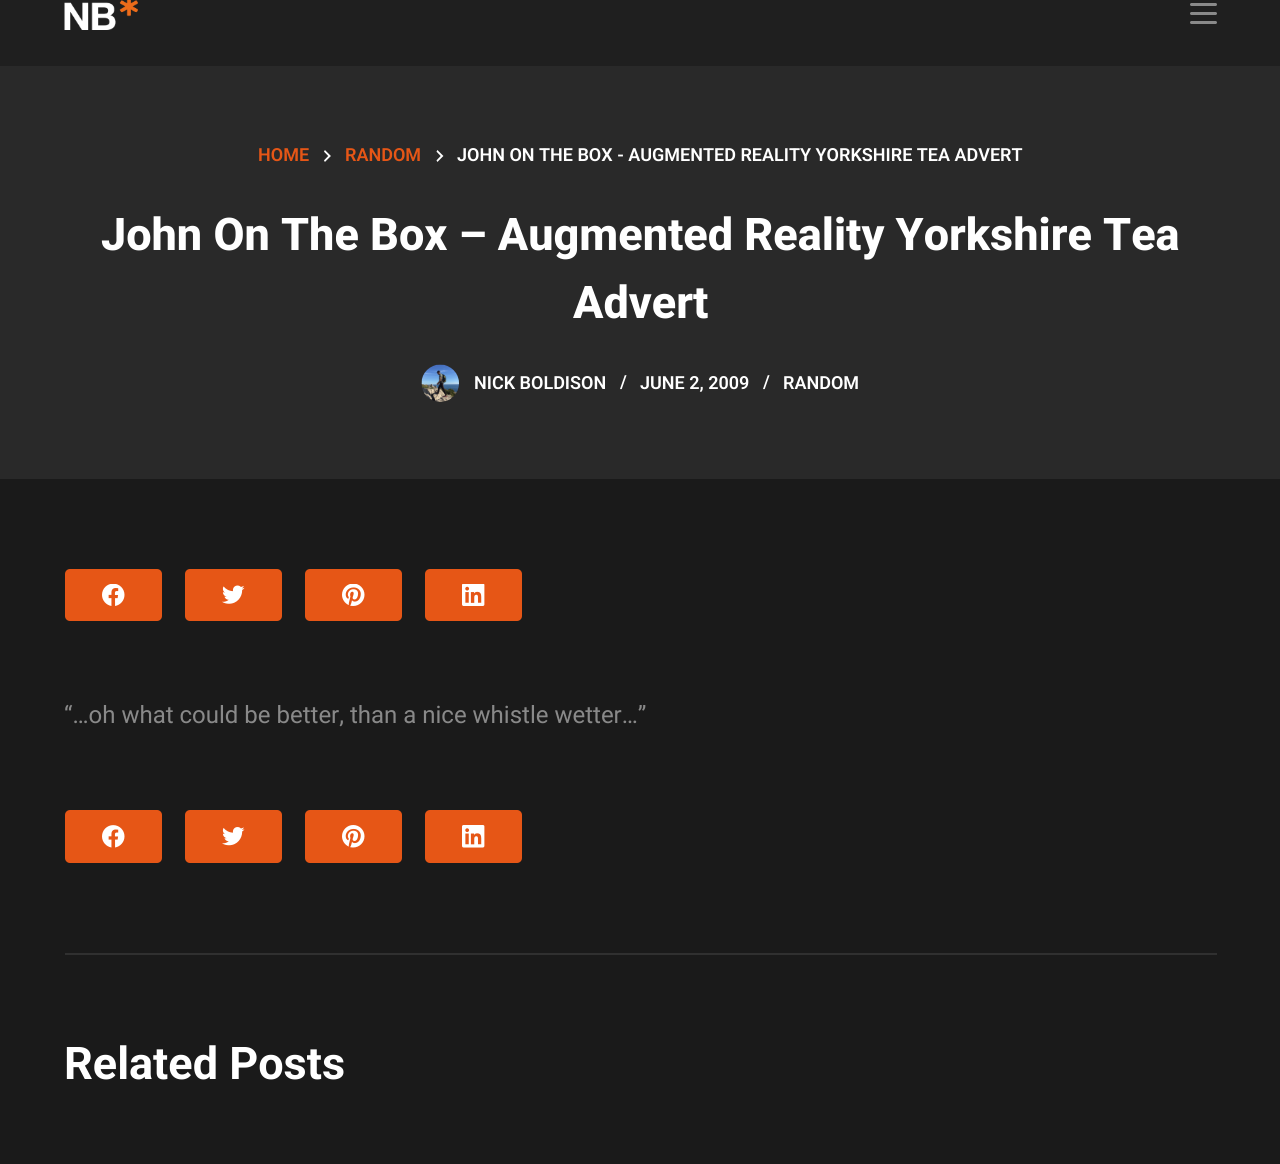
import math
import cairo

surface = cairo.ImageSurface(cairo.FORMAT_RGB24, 1280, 1164)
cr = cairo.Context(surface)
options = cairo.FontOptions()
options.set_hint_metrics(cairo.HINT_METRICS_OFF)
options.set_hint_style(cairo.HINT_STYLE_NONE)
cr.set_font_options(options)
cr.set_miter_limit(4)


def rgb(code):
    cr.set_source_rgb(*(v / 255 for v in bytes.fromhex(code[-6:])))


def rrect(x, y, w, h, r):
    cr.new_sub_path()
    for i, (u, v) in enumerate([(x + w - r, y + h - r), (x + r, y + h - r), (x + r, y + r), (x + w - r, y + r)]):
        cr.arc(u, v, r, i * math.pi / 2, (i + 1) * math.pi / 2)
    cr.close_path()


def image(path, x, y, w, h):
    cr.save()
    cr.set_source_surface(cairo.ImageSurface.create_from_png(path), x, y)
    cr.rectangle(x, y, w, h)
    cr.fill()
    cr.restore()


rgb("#1a1a1a")
cr.paint()
rgb("#1f1f1f")
cr.rectangle(0, 0, 1280, 66)
cr.fill()
image("img/1.png", 64, 0, 74, 30)
rgb("#898989")
rrect(1190, 3, 27, 3, 1.5)
cr.fill()
rrect(1190, 12, 27, 3, 1.5)
cr.fill()
rrect(1190, 21, 27, 3, 1.5)
cr.fill()
rgb("#292929")
cr.rectangle(0, 66, 1280, 413)
cr.fill()
image("img/2.png", 324, 150, 7, 12)
image("img/3.png", 436, 150, 8, 12)
image("img/4.png", 421, 364, 38, 38)
rgb("#e65616")
rrect(65, 569, 97, 52, 5)
cr.fill()
image("img/5.png", 102, 584, 23, 22)
rrect(185, 569, 97, 52, 5)
cr.fill()
image("img/6.png", 222, 585, 23, 19)
rrect(305, 569, 97, 52, 5)
cr.fill()
image("img/7.png", 342, 584, 23, 22)
rrect(425, 569, 97, 52, 5)
cr.fill()
image("img/8.png", 462, 584, 23, 22)
rrect(65, 810, 97, 53, 5)
cr.fill()
image("img/9.png", 102, 825, 23, 23)
rrect(185, 810, 97, 53, 5)
cr.fill()
image("img/10.png", 222, 827, 23, 19)
rrect(305, 810, 97, 53, 5)
cr.fill()
image("img/11.png", 342, 825, 23, 23)
rrect(425, 810, 97, 53, 5)
cr.fill()
image("img/12.png", 462, 825, 23, 23)
rgb("#303030")
cr.rectangle(65, 953, 1152, 2)
cr.fill()
cr.select_font_face("Roboto SemiBold")
cr.set_font_size(18)
rgb("#e65616")
cr.move_to(258, 161)
cr.show_text("HOME")
cr.move_to(345, 161)
cr.show_text("RANDOM")
rgb("#ffffff")
cr.move_to(457, 161)
cr.show_text("JOHN ON THE BOX - AUGMENTED REALITY YORKSHIRE TEA ADVERT")
cr.select_font_face("Roboto ExtraBold")
cr.set_font_size(45)
cr.move_to(101, 250)
cr.show_text("John On The Box – Augmented Reality Yorkshire Tea")
cr.move_to(573, 318)
cr.show_text("Advert")
cr.select_font_face("Roboto SemiBold")
cr.set_font_size(18)
for x, y, s in [
    (474, 389, "NICK BOLDISON"),
    (620, 388, "/"),
    (640, 389, "JUNE 2, 2009"),
    (763, 388, "/"),
    (783, 389, "RANDOM"),
]:
    cr.move_to(x, y)
    cr.show_text(s)
cr.select_font_face("Roboto")
cr.set_font_size(24)
rgb("#898989")
cr.move_to(64, 723)
cr.show_text("“…oh what could be better, than a nice whistle wetter…”")
cr.select_font_face("Roboto", cairo.FONT_SLANT_NORMAL, cairo.FONT_WEIGHT_BOLD)
cr.set_font_size(45)
rgb("#ffffff")
cr.move_to(64, 1079)
cr.show_text("Related Posts")
surface.write_to_png("page.png")
